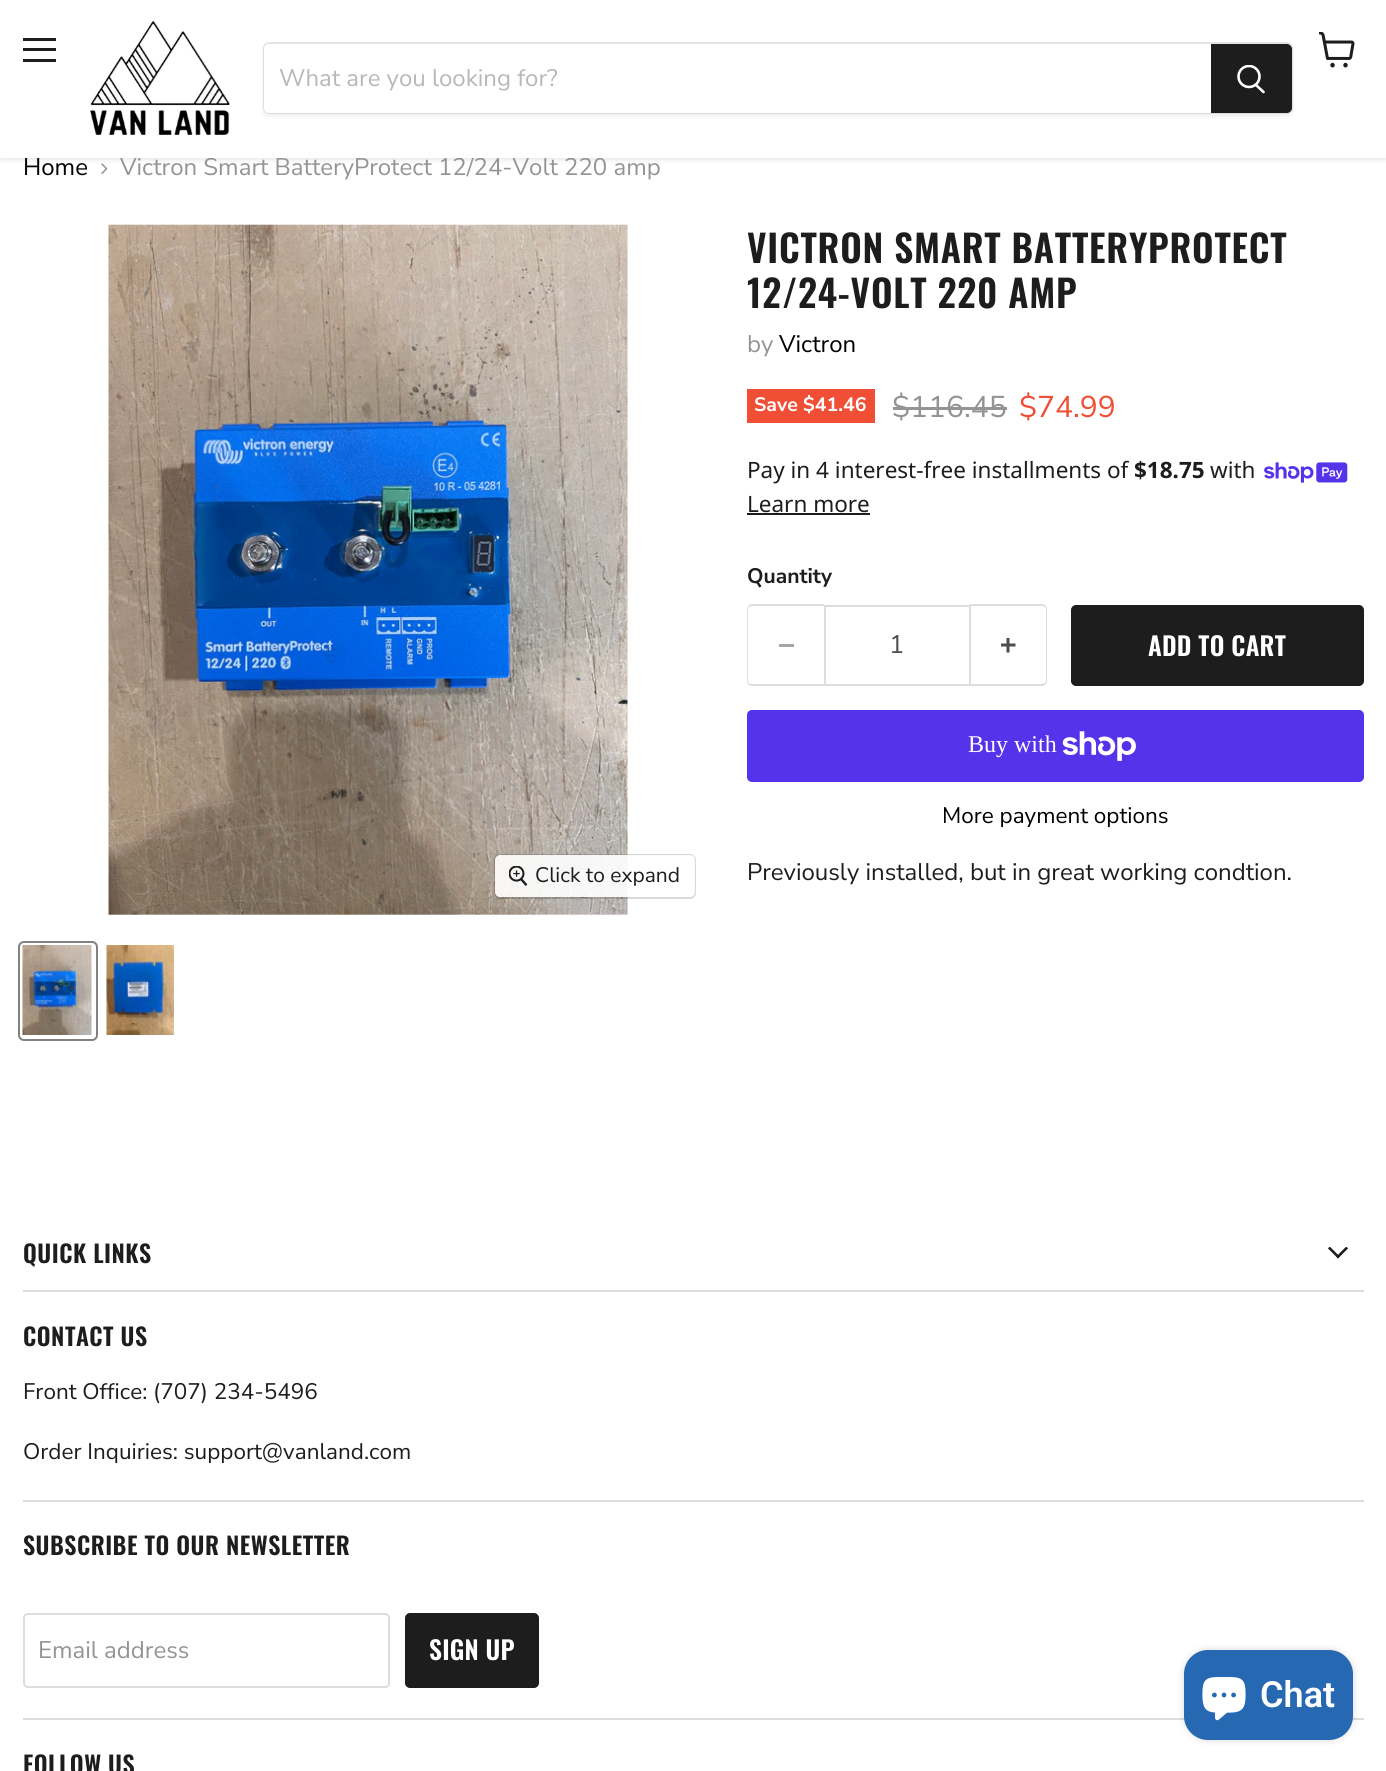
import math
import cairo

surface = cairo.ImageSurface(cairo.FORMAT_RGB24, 1386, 1771)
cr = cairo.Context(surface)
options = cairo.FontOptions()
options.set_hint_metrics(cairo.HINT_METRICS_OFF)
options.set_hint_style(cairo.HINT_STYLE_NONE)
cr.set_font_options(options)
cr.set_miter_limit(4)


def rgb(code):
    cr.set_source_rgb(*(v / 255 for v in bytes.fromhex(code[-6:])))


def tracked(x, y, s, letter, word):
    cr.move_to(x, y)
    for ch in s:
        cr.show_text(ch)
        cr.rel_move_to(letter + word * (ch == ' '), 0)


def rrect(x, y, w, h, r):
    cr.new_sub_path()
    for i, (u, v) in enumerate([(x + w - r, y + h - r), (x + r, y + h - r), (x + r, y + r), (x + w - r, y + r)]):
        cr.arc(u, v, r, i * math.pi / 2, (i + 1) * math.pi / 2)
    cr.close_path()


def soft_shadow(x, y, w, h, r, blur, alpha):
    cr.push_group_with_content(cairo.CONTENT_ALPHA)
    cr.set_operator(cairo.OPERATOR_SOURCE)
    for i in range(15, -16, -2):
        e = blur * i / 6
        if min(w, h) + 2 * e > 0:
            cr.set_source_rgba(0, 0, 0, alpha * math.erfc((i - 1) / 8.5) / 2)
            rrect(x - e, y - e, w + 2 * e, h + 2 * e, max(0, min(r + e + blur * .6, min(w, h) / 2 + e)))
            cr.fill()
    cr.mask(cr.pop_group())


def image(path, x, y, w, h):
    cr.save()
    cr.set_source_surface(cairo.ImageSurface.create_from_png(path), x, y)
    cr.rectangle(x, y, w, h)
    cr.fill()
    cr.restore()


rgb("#ffffff")
cr.paint()
image("img/3.png", 101, 163, 7, 11)
rgb("#808080")
soft_shadow(0, 2, 1386, 157, 0, 3, 0.25)
image("img/4.png", 108, 224, 520, 691)
rrect(495, 855, 200, 43, 5)
cr.set_source_rgba(0, 0, 0, 0.15)
cr.stroke()
cr.set_source_rgba(1, 1, 1, 0.9)
rrect(495, 855, 200, 42, 5)
cr.fill()
image("img/5.png", 509, 866, 19, 20)
rrect(19, 942, 78, 98, 5)
rgb("#818181")
cr.stroke()
image("img/6.png", 22, 945, 70, 90)
image("img/7.png", 106, 945, 68, 90)
rgb("#f04f36")
cr.rectangle(747, 389, 128, 34)
cr.fill()
rgb("#949494")
cr.rectangle(893, 407, 114, 3)
cr.fill()
image("img/8.png", 1264, 462, 84, 21)
rgb("#1d1d1d")
cr.rectangle(747, 513, 123, 2)
cr.fill()
rgb("#dddddd")
cr.set_fill_rule(cairo.FILL_RULE_EVEN_ODD)
cr.new_path()
cr.move_to(752, 604)
cr.line_to(824, 604)
cr.line_to(824, 686)
cr.line_to(752, 686)
cr.curve_to(749, 686, 747, 683, 747, 681)
cr.line_to(747, 609)
cr.curve_to(747, 607, 749, 604, 752, 604)
cr.close_path()
cr.move_to(752, 606)
cr.line_to(824, 606)
cr.line_to(824, 684)
cr.line_to(752, 684)
cr.curve_to(750, 684, 748, 683, 748, 681)
cr.line_to(748, 609)
cr.curve_to(748, 607, 750, 606, 752, 606)
cr.close_path()
cr.fill()
rgb("#a6a6a6")
cr.rectangle(779, 644, 15, 3)
cr.fill()
cr.rectangle(825, 606, 145, 79)
rgb("#dddddd")
cr.stroke()
cr.new_path()
cr.move_to(970, 604)
cr.line_to(1042, 604)
cr.curve_to(1045, 604, 1047, 607, 1047, 609)
cr.line_to(1047, 681)
cr.curve_to(1047, 683, 1045, 686, 1042, 686)
cr.line_to(970, 686)
cr.close_path()
cr.move_to(970, 606)
cr.line_to(1042, 606)
cr.curve_to(1044, 606, 1046, 607, 1046, 609)
cr.line_to(1046, 681)
cr.curve_to(1046, 683, 1044, 684, 1042, 684)
cr.line_to(970, 684)
cr.close_path()
cr.fill()
image("img/9.png", 1001, 638, 15, 15)
rgb("#1d1d1d")
rrect(1072, 606, 291, 79, 4)
cr.fill_preserve()
cr.stroke()
rgb("#5433eb")
rrect(747, 710, 617, 72, 5)
cr.fill()
image("img/10.png", 1062, 731, 74, 30)
rgb("#dddddd")
cr.rectangle(23, 1290, 1341, 2)
cr.fill()
image("img/11.png", 1328, 1247, 20, 12)
cr.rectangle(23, 1500, 1341, 2)
cr.fill()
cr.rectangle(23, 1718, 1341, 2)
cr.fill()
rrect(24, 1614, 365, 73, 4)
cr.stroke()
rgb("#1d1d1d")
rrect(406, 1614, 132, 73, 4)
cr.fill_preserve()
cr.stroke()
rgb("#000000")
soft_shadow(1184, 1650, 169, 90, 24, 4, 0.15)
rgb("#2768b3")
rrect(1184, 1650, 169, 90, 24)
cr.fill()
image("img/12.png", 1202, 1677, 44, 44)
cr.select_font_face("Nunito Sans")
cr.set_font_size(24)
rgb("#000000")
cr.move_to(23, 175)
cr.show_text("Home")
rgb("#949494")
cr.move_to(120, 175)
cr.show_text("Victron Smart BatteryProtect 12/24-Volt 220 amp")
rgb("#ffffff")
cr.rectangle(0, 0, 1386, 158)
cr.fill()
rgb("#808080")
soft_shadow(263, 45, 1030, 72, 6, 2, 0.11)
rrect(264, 43, 1028, 70, 5)
cr.set_source_rgba(0.502, 0.502, 0.502, 0.2)
cr.stroke()
rgb("#ffffff")
cr.new_path()
cr.move_to(269, 44)
cr.line_to(1211, 44)
cr.line_to(1211, 113)
cr.line_to(269, 113)
cr.curve_to(266, 113, 264, 111, 264, 108)
cr.line_to(264, 49)
cr.curve_to(264, 46, 266, 44, 269, 44)
cr.close_path()
cr.fill()
rgb("#b8b8b8")
cr.move_to(279, 86)
cr.show_text("What are you looking for?")
rgb("#1d1d1d")
cr.new_path()
cr.move_to(1212, 45)
cr.line_to(1287, 45)
cr.curve_to(1289, 45, 1291, 47, 1291, 49)
cr.line_to(1291, 108)
cr.curve_to(1291, 110, 1289, 112, 1287, 112)
cr.line_to(1212, 112)
cr.close_path()
cr.fill_preserve()
cr.stroke()
cr.new_path()
cr.move_to(1263.5, 92)
cr.line_to(1256, 85)
rgb("#ffffff")
cr.set_line_width(2.6)
cr.set_line_cap(cairo.LINE_CAP_ROUND)
cr.stroke()
cr.save()
cr.set_fill_rule(cairo.FILL_RULE_WINDING)
cr.rectangle(1236, 65, 30, 31)
cr.clip()
cr.arc(1249, 76.5, 10.5, 0, 2 * math.pi)
cr.set_line_cap(cairo.LINE_CAP_BUTT)
cr.stroke()
cr.restore()
image("img/1.png", 1319, 32, 36, 36)
for x, y, w, h, color in [
    (23, 59, 33, 3, "#1d1d1d"),
    (23, 48, 33, 3, "#1d1d1d"),
    (23, 38, 33, 3, "#1d1d1d"),
]:
    rgb(color)
    cr.rectangle(x, y, w, h)
    cr.fill()
image("img/2.png", 90, 21, 141, 115)
cr.set_font_size(21)
cr.move_to(535, 882)
cr.show_text("Click to expand")
cr.select_font_face("Oswald SemiBold")
cr.set_font_size(37.5)
tracked(747, 263, "VICTRON SMART BATTERYPROTECT", 0.75, 0)
tracked(747, 308, "12/24-VOLT 220 AMP", 0.75, 0)
cr.select_font_face("Nunito Sans")
cr.set_font_size(24)
rgb("#949494")
cr.move_to(747, 352)
cr.show_text("by")
rgb("#000000")
cr.move_to(779, 352)
cr.show_text("Victron")
cr.select_font_face("Nunito Sans", cairo.FONT_SLANT_NORMAL, cairo.FONT_WEIGHT_BOLD)
cr.set_font_size(19.5)
rgb("#ffffff")
cr.move_to(754, 411)
cr.show_text("Save $41.46")
cr.select_font_face("Nunito Sans")
cr.set_font_size(30)
rgb("#949494")
cr.move_to(892, 417)
cr.show_text("$116.45")
rgb("#f04f36")
cr.move_to(1019, 417)
cr.show_text("$74.99")
cr.select_font_face("Noto Sans")
cr.set_font_size(22.5)
rgb("#1d1d1d")
cr.move_to(747, 478)
cr.show_text("Pay in 4 interest-free installments of")
cr.select_font_face("Noto Sans", cairo.FONT_SLANT_NORMAL, cairo.FONT_WEIGHT_BOLD)
cr.move_to(1134, 478)
cr.show_text("$18.75")
cr.select_font_face("Noto Sans")
cr.move_to(1210, 478)
cr.show_text("with")
cr.move_to(747, 512)
cr.show_text("Learn more")
cr.select_font_face("Nunito Sans", cairo.FONT_SLANT_NORMAL, cairo.FONT_WEIGHT_BOLD)
cr.set_font_size(21)
cr.move_to(747, 583)
cr.show_text("Quantity")
cr.select_font_face("Nunito Sans")
cr.set_font_size(25.5)
rgb("#4d4d4d")
cr.move_to(889, 653)
cr.show_text("1")
cr.select_font_face("Oswald SemiBold")
rgb("#ffffff")
tracked(1148, 656, "ADD TO CART", 0.25, 0)
cr.select_font_face("Liberation Serif")
cr.set_font_size(24)
cr.move_to(968, 752)
cr.show_text("Buy with")
cr.select_font_face("Nunito Sans")
cr.set_font_size(22.5)
rgb("#000000")
cr.move_to(942, 823)
cr.show_text("More payment options")
cr.set_font_size(24)
rgb("#1d1d1d")
cr.move_to(747, 880)
cr.show_text("Previously installed, but in great working condtion.")
cr.select_font_face("Oswald SemiBold")
tracked(23, 1263, "QUICK LINKS", 0.5, 0)
tracked(23, 1346, "CONTACT US", 0.5, 0)
cr.select_font_face("Nunito Sans")
cr.set_font_size(22.5)
cr.move_to(23, 1399)
cr.show_text("Front Office: (707) 234-5496")
cr.move_to(23, 1459)
cr.show_text("Order Inquiries: support@vanland.com")
cr.select_font_face("Oswald SemiBold")
cr.set_font_size(24)
tracked(23, 1555, "SUBSCRIBE TO OUR NEWSLETTER", 0.5, 0)
cr.select_font_face("Nunito Sans")
rgb("#949494")
cr.move_to(38, 1658)
cr.show_text("Email address")
cr.select_font_face("Oswald SemiBold")
cr.set_font_size(25.5)
rgb("#ffffff")
tracked(429, 1660, "SIGN UP", 0.25, 0)
cr.set_font_size(24)
rgb("#1d1d1d")
tracked(23, 1774, "FOLLOW US", 0.5, 0)
cr.select_font_face("Roboto SemiBold")
cr.set_font_size(36)
rgb("#ffffff")
cr.move_to(1260, 1707)
cr.show_text("Chat")
surface.write_to_png("page.png")
